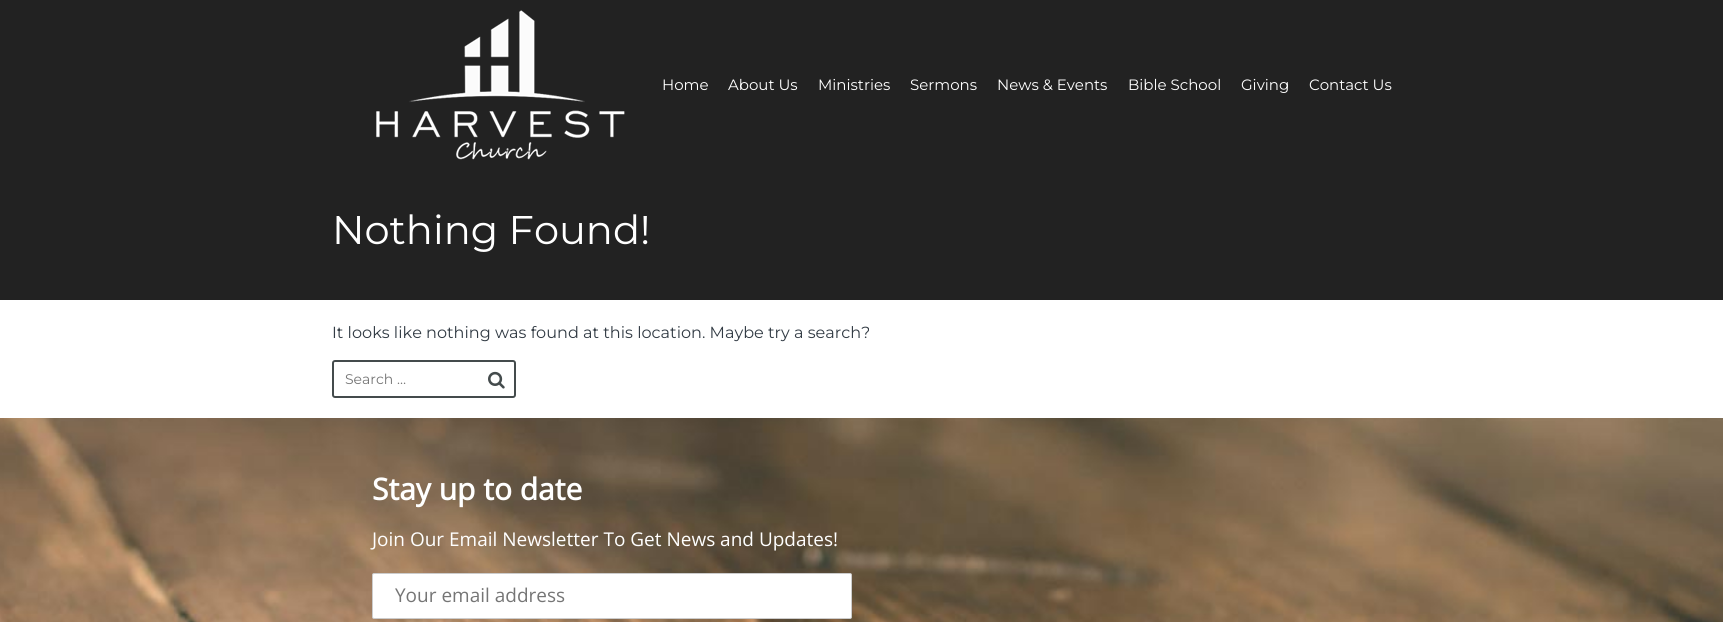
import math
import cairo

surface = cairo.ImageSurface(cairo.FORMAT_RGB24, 1723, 622)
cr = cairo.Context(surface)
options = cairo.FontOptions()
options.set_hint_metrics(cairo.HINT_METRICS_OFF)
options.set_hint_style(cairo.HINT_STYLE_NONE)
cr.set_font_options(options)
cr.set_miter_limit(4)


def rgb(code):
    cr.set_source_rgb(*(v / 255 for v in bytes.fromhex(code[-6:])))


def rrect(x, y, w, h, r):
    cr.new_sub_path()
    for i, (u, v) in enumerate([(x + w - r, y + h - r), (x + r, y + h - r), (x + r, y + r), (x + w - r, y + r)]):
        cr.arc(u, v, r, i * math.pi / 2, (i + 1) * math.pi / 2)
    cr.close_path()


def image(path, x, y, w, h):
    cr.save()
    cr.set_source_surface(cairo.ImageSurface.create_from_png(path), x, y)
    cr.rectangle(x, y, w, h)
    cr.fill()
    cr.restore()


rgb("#ffffff")
cr.paint()
rgb("#222222")
cr.rectangle(0, 0, 1723, 300)
cr.fill()
image("img/1.png", 376, 10, 249, 150)
rrect(333, 361, 182, 36, 2)
rgb("#444b4c")
cr.stroke()
image("img/2.png", 488, 371, 17, 18)
image("img/3.png", 0, 418, 1723, 204)
rgb("#ffffff")
rrect(372.5, 573.5, 479, 45, 1.5)
cr.fill_preserve()
rgb("#cccccc")
cr.set_line_width(1)
cr.stroke()
cr.select_font_face("Montserrat Thin")
cr.set_font_size(15)
rgb("#ffffff")
for x, y, s in [
    (662, 90, "Home"),
    (728, 90, "About Us"),
    (818, 90, "Ministries"),
    (910, 90, "Sermons"),
    (997, 90, "News & Events"),
    (1128, 90, "Bible School"),
    (1241, 90, "Giving"),
    (1309, 90, "Contact Us"),
]:
    cr.move_to(x, y)
    cr.show_text(s)
cr.set_font_size(40)
cr.move_to(332, 244)
cr.show_text("Nothing Found!")
cr.set_font_size(16.1)
rgb("#323b44")
cr.move_to(332, 338)
cr.show_text("It looks like nothing was found at this location. Maybe try a search?")
cr.set_font_size(14)
rgb("#757575")
cr.move_to(345, 384)
cr.show_text("Search …")
cr.select_font_face("Open Sans", cairo.FONT_SLANT_NORMAL, cairo.FONT_WEIGHT_BOLD)
cr.set_font_size(30)
rgb("#ffffff")
cr.move_to(372, 500)
cr.show_text("Stay up to date")
cr.select_font_face("Open Sans")
cr.set_font_size(19)
cr.move_to(372, 546)
cr.show_text("Join Our Email Newsletter To Get News and Updates!")
rgb("#757575")
cr.move_to(395, 602)
cr.show_text("Your email address")
surface.write_to_png("page.png")
